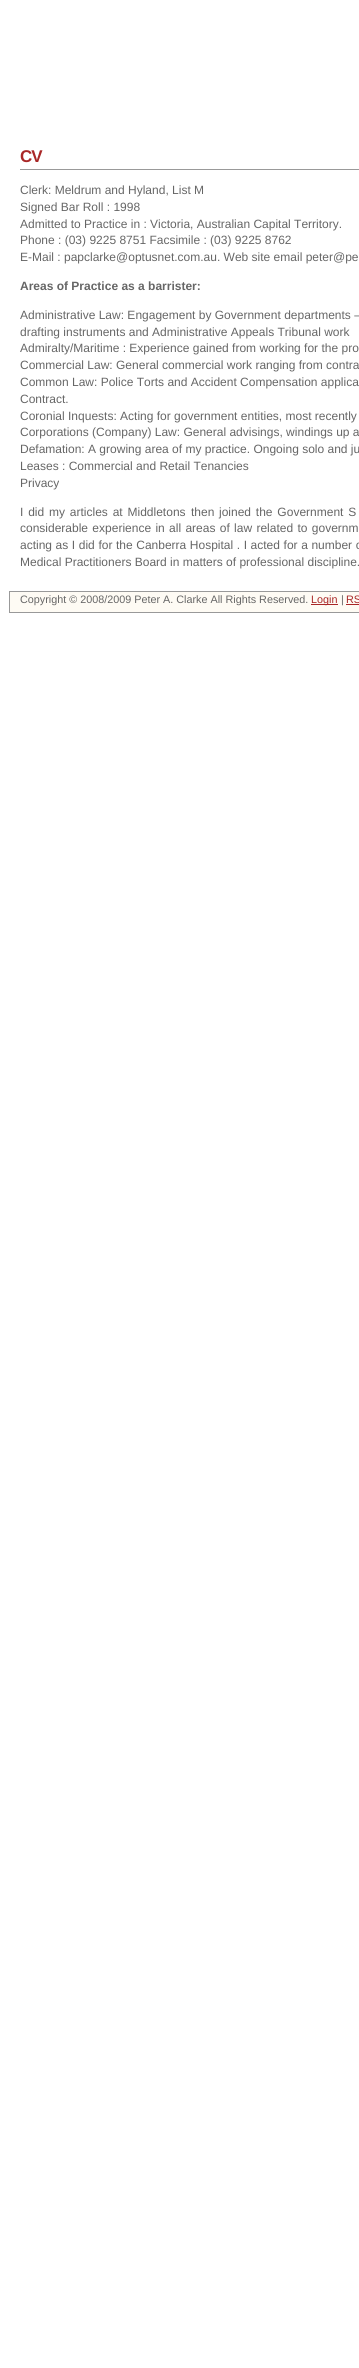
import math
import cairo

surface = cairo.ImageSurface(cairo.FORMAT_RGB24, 359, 2368)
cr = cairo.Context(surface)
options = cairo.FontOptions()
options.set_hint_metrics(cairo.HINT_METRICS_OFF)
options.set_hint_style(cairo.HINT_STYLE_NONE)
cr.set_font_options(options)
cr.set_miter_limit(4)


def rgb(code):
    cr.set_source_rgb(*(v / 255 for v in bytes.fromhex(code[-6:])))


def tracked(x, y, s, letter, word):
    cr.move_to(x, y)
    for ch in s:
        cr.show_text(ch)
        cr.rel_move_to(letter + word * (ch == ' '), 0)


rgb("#ffffff")
cr.paint()
rgb("#999999")
cr.rectangle(20, 169, 339, 1)
cr.fill()
rgb("#fefbf4")
cr.rectangle(9.5, 591.5, 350, 21)
cr.fill_preserve()
rgb("#999999")
cr.set_line_width(1)
cr.stroke()
rgb("#a92727")
cr.rectangle(311, 604, 27, 1)
cr.fill()
cr.rectangle(346, 604, 13, 1)
cr.fill()
cr.select_font_face("Liberation Sans", cairo.FONT_SLANT_NORMAL, cairo.FONT_WEIGHT_BOLD)
cr.set_font_size(17)
tracked(20, 162, "CV", -1, 0)
cr.select_font_face("Liberation Sans")
cr.set_font_size(12)
rgb("#666666")
for x, y, s in [
    (20, 194, "Clerk: Meldrum and Hyland, List M"),
    (20, 211, "Signed Bar Roll : 1998"),
    (20, 228, "Admitted to Practice in : Victoria, Australian Capital Territory."),
    (20, 244, "Phone : (03) 9225 8751 Facsimile : (03) 9225 8762"),
    (20, 261, "E-Mail : papclarke@optusnet.com.au. Web site email peter@pe"),
]:
    cr.move_to(x, y)
    cr.show_text(s)
cr.select_font_face("Liberation Sans", cairo.FONT_SLANT_NORMAL, cairo.FONT_WEIGHT_BOLD)
cr.move_to(20, 290)
cr.show_text("Areas of Practice as a barrister:")
cr.select_font_face("Liberation Sans")
for x, y, s in [
    (20, 319, "Administrative Law: Engagement by Government departments –"),
    (20, 336, "drafting instruments and Administrative Appeals Tribunal work"),
    (20, 352, "Admiralty/Maritime : Experience gained from working for the pro"),
    (20, 369, "Commercial Law: General commercial work ranging from contra"),
    (20, 386, "Common Law: Police Torts and Accident Compensation applica"),
    (20, 403, "Contract."),
    (20, 420, "Coronial Inquests: Acting for government entities, most recently"),
    (20, 436, "Corporations (Company) Law: General advisings, windings up a"),
    (20, 453, "Defamation: A growing area of my practice. Ongoing solo and ju"),
    (20, 470, "Leases : Commercial and Retail Tenancies"),
    (20, 487, "Privacy"),
]:
    cr.move_to(x, y)
    cr.show_text(s)
tracked(20, 516, "I did my articles at Middletons", 0, 1.5)
cr.move_to(191, 516)
cr.show_text("then")
tracked(219, 516, "joined the Government S", 0, 1.5)
tracked(20, 532, "considerable experience in all areas of law related to governm", 0, 1)
tracked(20, 549, "acting as I did for the Canberra Hospital . I acted for a number o", 0, 0.25)
cr.move_to(20, 566)
cr.show_text("Medical Practitioners Board in matters of professional discipline.")
cr.set_font_size(10.8)
cr.move_to(20, 603)
cr.show_text("Copyright © 2008/2009 Peter A. Clarke All Rights Reserved.")
rgb("#a92727")
cr.move_to(311, 603)
cr.show_text("Login")
rgb("#666666")
cr.move_to(341, 603)
cr.show_text("|")
rgb("#a92727")
cr.move_to(346, 603)
cr.show_text("RS")
surface.write_to_png("page.png")
